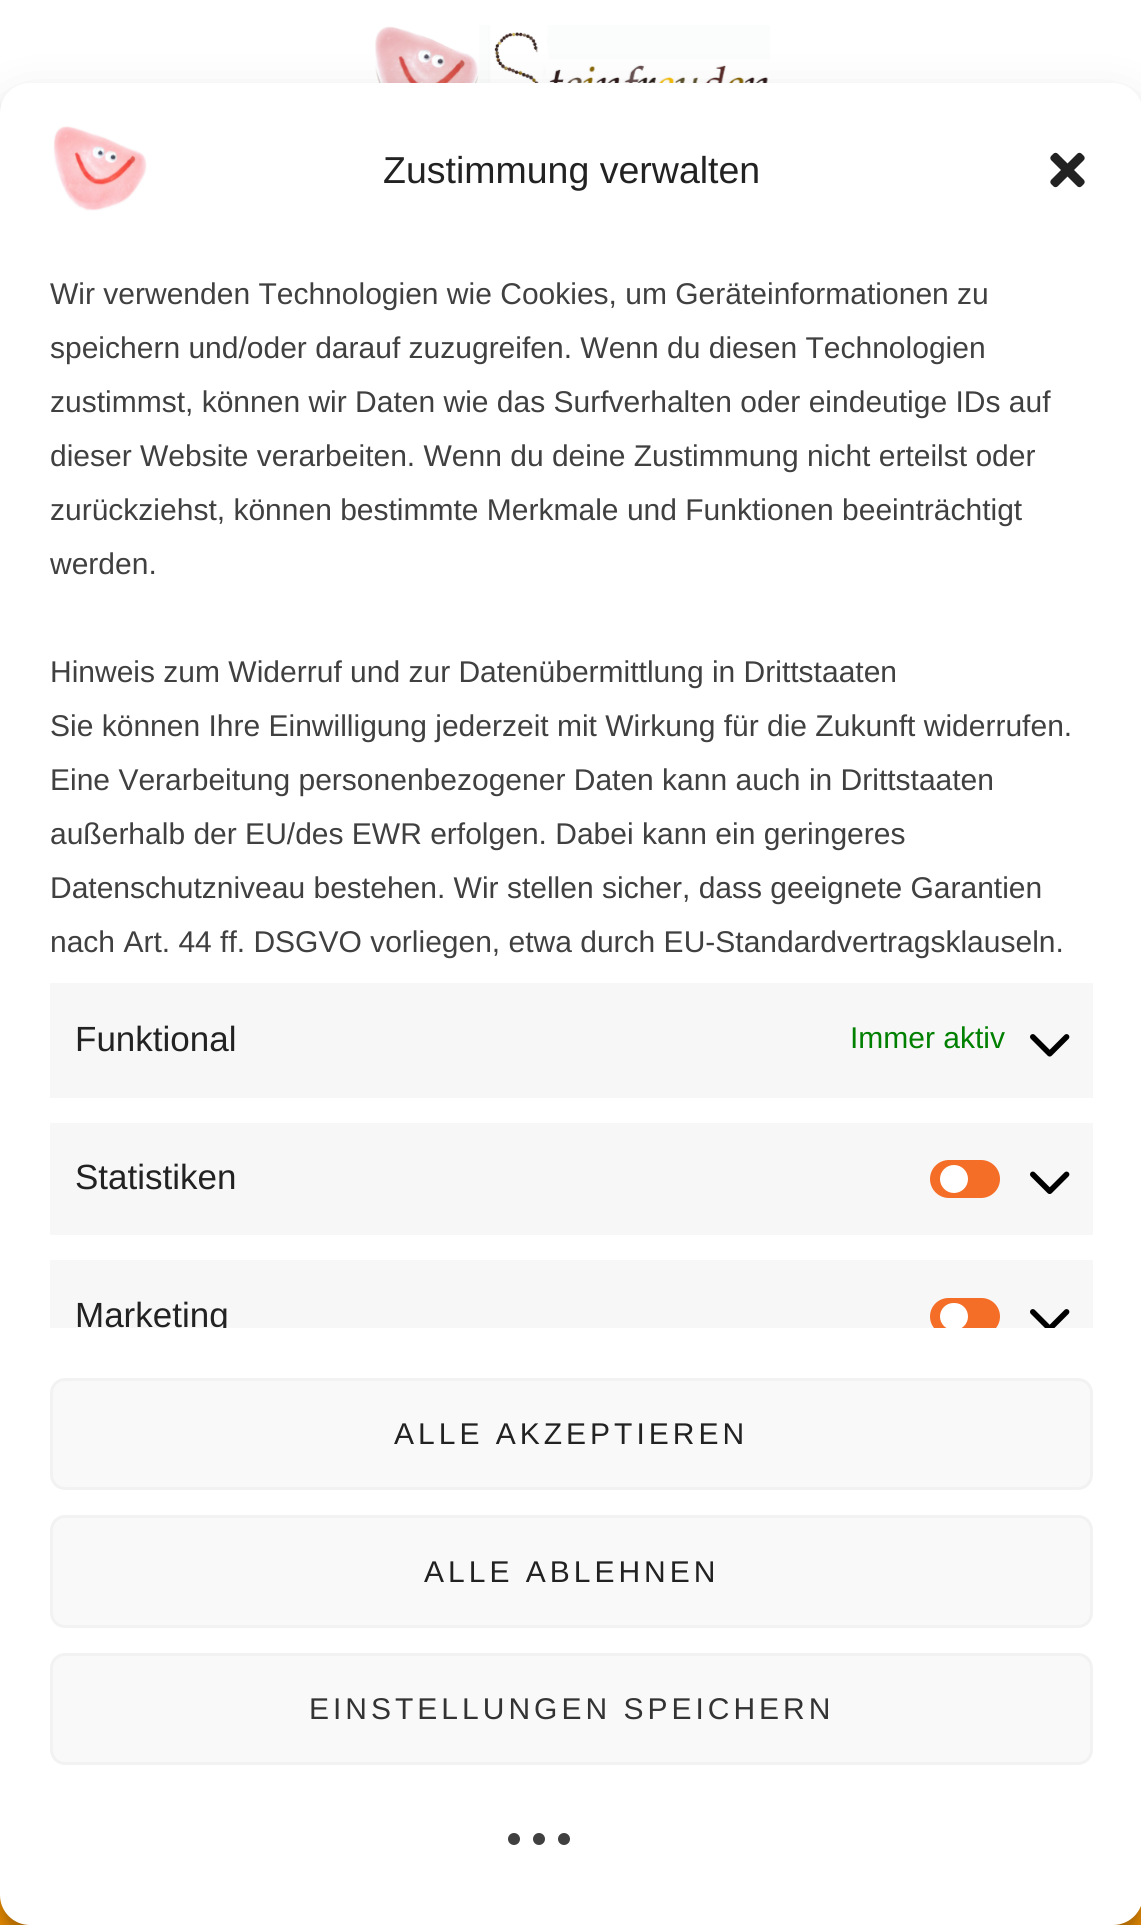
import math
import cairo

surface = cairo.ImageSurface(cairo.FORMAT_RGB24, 1141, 1925)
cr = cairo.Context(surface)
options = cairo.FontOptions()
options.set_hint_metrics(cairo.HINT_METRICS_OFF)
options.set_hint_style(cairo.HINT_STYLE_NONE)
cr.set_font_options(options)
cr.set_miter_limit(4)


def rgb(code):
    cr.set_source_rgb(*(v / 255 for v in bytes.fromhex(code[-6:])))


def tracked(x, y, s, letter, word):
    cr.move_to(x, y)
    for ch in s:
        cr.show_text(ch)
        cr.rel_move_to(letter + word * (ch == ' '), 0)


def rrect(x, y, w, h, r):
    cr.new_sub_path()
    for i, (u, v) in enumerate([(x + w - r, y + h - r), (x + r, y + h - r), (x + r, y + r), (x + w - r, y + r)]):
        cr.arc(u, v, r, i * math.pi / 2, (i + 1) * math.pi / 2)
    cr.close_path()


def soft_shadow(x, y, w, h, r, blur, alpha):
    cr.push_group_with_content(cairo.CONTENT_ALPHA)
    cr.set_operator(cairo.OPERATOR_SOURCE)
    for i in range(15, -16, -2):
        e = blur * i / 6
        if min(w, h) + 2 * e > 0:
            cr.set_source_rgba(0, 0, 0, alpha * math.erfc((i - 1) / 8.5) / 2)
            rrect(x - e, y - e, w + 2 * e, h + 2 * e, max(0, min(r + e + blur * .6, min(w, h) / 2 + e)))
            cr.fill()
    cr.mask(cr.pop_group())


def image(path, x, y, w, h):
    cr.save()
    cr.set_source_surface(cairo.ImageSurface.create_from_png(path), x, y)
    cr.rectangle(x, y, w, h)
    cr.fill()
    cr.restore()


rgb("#ffffff")
cr.paint()
image("img/1.png", 375, 25, 395, 58)
rgb("#ff9900")
cr.rectangle(0, 1895, 1141, 30)
cr.fill()
rgb("#000000")
soft_shadow(0, 98, 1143, 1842, 30, 7.5, 0.23)
soft_shadow(0, 108, 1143, 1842, 30, 25, 0.19)
rgb("#ffffff")
rrect(0, 83, 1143, 1842, 30)
cr.fill()
image("img/2.png", 53, 126, 94, 85)
image("img/3.png", 1050, 152, 35, 36)
rgb("#f7f7f7")
cr.rectangle(50, 983, 1043, 115)
cr.fill()
image("img/4.png", 1030, 1034, 40, 23)
cr.rectangle(50, 1123, 1043, 112)
cr.fill()
rgb("#f56e28")
rrect(930, 1160, 70, 38, 19)
cr.fill()
rgb("#ffffff")
cr.arc(954, 1179, 14, 0, 2 * math.pi)
cr.fill()
image("img/5.png", 1030, 1171, 40, 23)
rgb("#f7f7f7")
cr.rectangle(50, 1260, 1043, 68)
cr.fill()
cr.save()
cr.rectangle(50, 270, 1043, 1058)
cr.clip()
rgb("#f56e28")
rrect(930, 1298, 70, 37, 18.5)
cr.fill()
rgb("#ffffff")
rrect(940, 1303, 28, 27, 13.5)
cr.fill()
cr.restore()
image("img/6.png", 1030, 1309, 40, 19)
rgb("#f9f9f9")
rrect(51.5, 1379.5, 1040, 109, 13.5)
cr.fill_preserve()
rgb("#f2f2f2")
cr.set_line_width(3)
cr.stroke()
rgb("#f9f9f9")
rrect(51.5, 1516.5, 1040, 110, 13.5)
cr.fill_preserve()
rgb("#f2f2f2")
cr.stroke()
rgb("#f9f9f9")
rrect(51.5, 1654.5, 1040, 109, 13.5)
cr.fill_preserve()
rgb("#f2f2f2")
cr.stroke()
rgb("#404040")
cr.arc(514, 1839, 6, 0, 2 * math.pi)
cr.fill()
cr.arc(539, 1839, 6, 0, 2 * math.pi)
cr.fill()
cr.arc(564, 1839, 6, 0, 2 * math.pi)
cr.fill()
cr.select_font_face("Liberation Sans")
cr.set_font_size(37.5)
rgb("#222222")
cr.move_to(383, 183)
cr.show_text("Zustimmung verwalten")
cr.set_font_size(30)
rgb("#404040")
for x, y, s in [
    (50, 304, "Wir verwenden Technologien wie Cookies, um Geräteinformationen zu"),
    (50, 358, "speichern und/oder darauf zuzugreifen. Wenn du diesen Technologien"),
    (50, 412, "zustimmst, können wir Daten wie das Surfverhalten oder eindeutige IDs auf"),
    (50, 466, "dieser Website verarbeiten. Wenn du deine Zustimmung nicht erteilst oder"),
    (50, 520, "zurückziehst, können bestimmte Merkmale und Funktionen beeinträchtigt"),
    (50, 574, "werden."),
    (50, 682, "Hinweis zum Widerruf und zur Datenübermittlung in Drittstaaten"),
    (50, 736, "Sie können Ihre Einwilligung jederzeit mit Wirkung für die Zukunft widerrufen."),
    (50, 790, "Eine Verarbeitung personenbezogener Daten kann auch in Drittstaaten"),
    (50, 844, "außerhalb der EU/des EWR erfolgen. Dabei kann ein geringeres"),
    (50, 898, "Datenschutzniveau bestehen. Wir stellen sicher, dass geeignete Garantien"),
    (50, 952, "nach Art. 44 ff. DSGVO vorliegen, etwa durch EU-Standardvertragsklauseln."),
]:
    cr.move_to(x, y)
    cr.show_text(s)
cr.set_font_size(35)
rgb("#222222")
cr.move_to(75, 1051)
cr.show_text("Funktional")
cr.set_font_size(30)
rgb("#008000")
cr.move_to(850, 1048)
cr.show_text("Immer aktiv")
cr.set_font_size(35)
rgb("#222222")
cr.move_to(75, 1189)
cr.show_text("Statistiken")
cr.save()
cr.rectangle(50, 270, 1043, 1058)
cr.clip()
cr.move_to(75, 1327)
cr.show_text("Marketing")
cr.restore()
cr.set_font_size(30)
tracked(394, 1444, "ALLE AKZEPTIEREN", 4, 0)
tracked(424, 1582, "ALLE ABLEHNEN", 4, 0)
rgb("#333333")
tracked(309, 1719, "EINSTELLUNGEN SPEICHERN", 4, 0)
surface.write_to_png("page.png")
